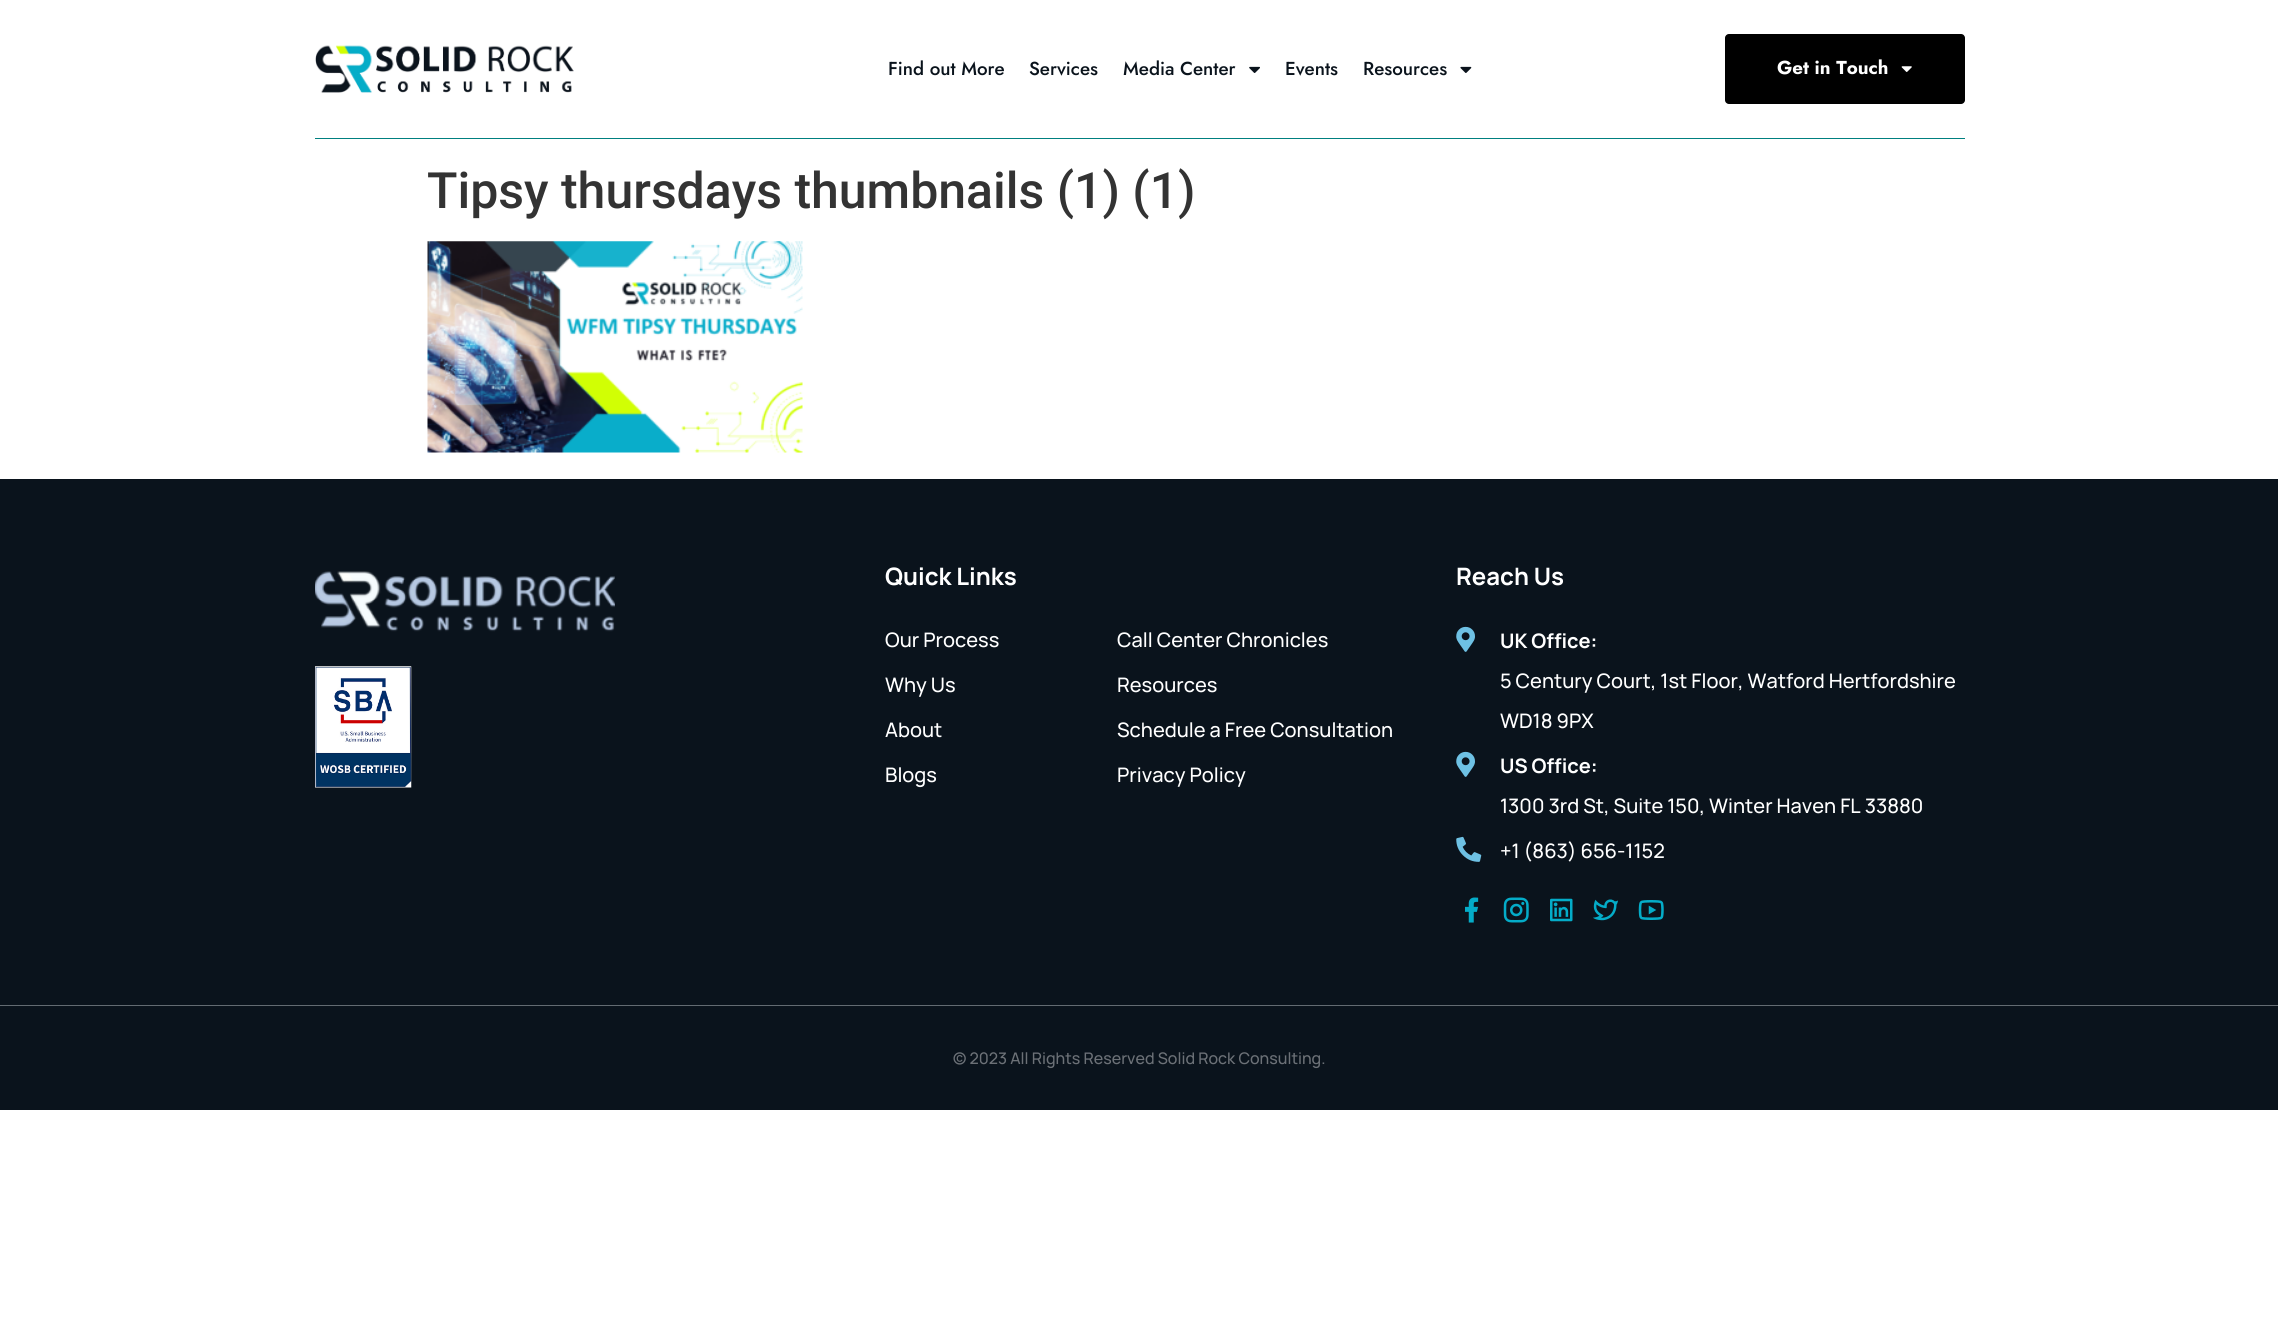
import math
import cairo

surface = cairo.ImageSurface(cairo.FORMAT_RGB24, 2278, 1321)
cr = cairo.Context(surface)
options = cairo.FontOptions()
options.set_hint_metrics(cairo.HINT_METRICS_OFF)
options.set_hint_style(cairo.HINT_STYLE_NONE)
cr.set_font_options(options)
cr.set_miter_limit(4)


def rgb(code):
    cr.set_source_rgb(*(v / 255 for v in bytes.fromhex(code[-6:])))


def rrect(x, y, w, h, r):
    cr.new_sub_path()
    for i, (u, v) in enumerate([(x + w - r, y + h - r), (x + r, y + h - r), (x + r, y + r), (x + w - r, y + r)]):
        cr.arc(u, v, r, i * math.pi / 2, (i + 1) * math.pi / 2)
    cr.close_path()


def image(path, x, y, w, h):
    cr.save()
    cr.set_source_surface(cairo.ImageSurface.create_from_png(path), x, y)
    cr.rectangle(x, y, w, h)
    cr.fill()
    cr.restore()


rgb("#ffffff")
cr.paint()
rgb("#008080")
cr.rectangle(315, 138, 1650, 1)
cr.fill()
image("img/1.png", 315, 45, 259, 48)
image("img/2.png", 1249, 66, 11, 7)
image("img/3.png", 1460, 66, 12, 7)
rgb("#000000")
rrect(1725, 34, 240, 70, 4)
cr.fill()
image("img/4.png", 1901, 66, 11, 6)
image("img/5.png", 427, 241, 376, 212)
rgb("#0a131c")
cr.rectangle(0, 479, 2278, 631)
cr.fill()
image("img/6.png", 315, 571, 300, 61)
image("img/7.png", 315, 666, 97, 122)
image("img/8.png", 1456, 626, 19, 26)
image("img/8.png", 1456, 751, 19, 26)
image("img/9.png", 1456, 836, 26, 26)
image("img/10.png", 1465, 897, 14, 26)
image("img/11.png", 1503, 897, 26, 26)
image("img/12.png", 1550, 898, 23, 24)
image("img/13.png", 1593, 899, 25, 22)
image("img/14.png", 1638, 900, 26, 20)
rgb("#636b72")
cr.rectangle(0, 1005, 2278, 1)
cr.fill()
cr.select_font_face("Jost Medium")
cr.set_font_size(18.75)
rgb("#0a131c")
for x, y, s in [
    (888, 75, "Find out More"),
    (1029, 75, "Services"),
    (1123, 75, "Media Center"),
    (1285, 75, "Events"),
    (1363, 75, "Resources"),
]:
    cr.move_to(x, y)
    cr.show_text(s)
cr.select_font_face("Jost", cairo.FONT_SLANT_NORMAL, cairo.FONT_WEIGHT_BOLD)
rgb("#ffffff")
cr.move_to(1777, 74)
cr.show_text("Get in Touch")
cr.select_font_face("Roboto Medium")
cr.set_font_size(50)
rgb("#333333")
cr.move_to(427, 208)
cr.show_text("Tipsy thursdays thumbnails (1) (1)")
cr.select_font_face("Manrope", cairo.FONT_SLANT_NORMAL, cairo.FONT_WEIGHT_BOLD)
cr.set_font_size(24)
rgb("#ffffff")
cr.move_to(885, 585)
cr.show_text("Quick Links")
cr.select_font_face("Manrope Medium")
cr.set_font_size(20)
for x, y, s in [
    (885, 647, "Our Process"),
    (885, 692, "Why Us"),
    (885, 737, "About"),
    (885, 782, "Blogs"),
    (1117, 647, "Call Center Chronicles"),
    (1117, 692, "Resources"),
    (1117, 737, "Schedule a Free Consultation"),
    (1117, 782, "Privacy Policy"),
]:
    cr.move_to(x, y)
    cr.show_text(s)
cr.select_font_face("Manrope", cairo.FONT_SLANT_NORMAL, cairo.FONT_WEIGHT_BOLD)
cr.set_font_size(24)
cr.move_to(1456, 585)
cr.show_text("Reach Us")
cr.set_font_size(20)
cr.move_to(1500, 648)
cr.show_text("UK Office:")
cr.select_font_face("Manrope Medium")
cr.move_to(1500, 688)
cr.show_text("5 Century Court, 1st Floor, Watford Hertfordshire")
cr.move_to(1500, 728)
cr.show_text("WD18 9PX")
cr.select_font_face("Manrope", cairo.FONT_SLANT_NORMAL, cairo.FONT_WEIGHT_BOLD)
cr.move_to(1500, 773)
cr.show_text("US Office:")
cr.select_font_face("Manrope Medium")
cr.move_to(1500, 813)
cr.show_text("1300 3rd St, Suite 150, Winter Haven FL 33880")
cr.move_to(1500, 858)
cr.show_text("+1 (863) 656-1152")
cr.set_font_size(16)
rgb("#6c7177")
cr.move_to(953, 1064)
cr.show_text("© 2023 All Rights Reserved Solid Rock Consulting.")
surface.write_to_png("page.png")
